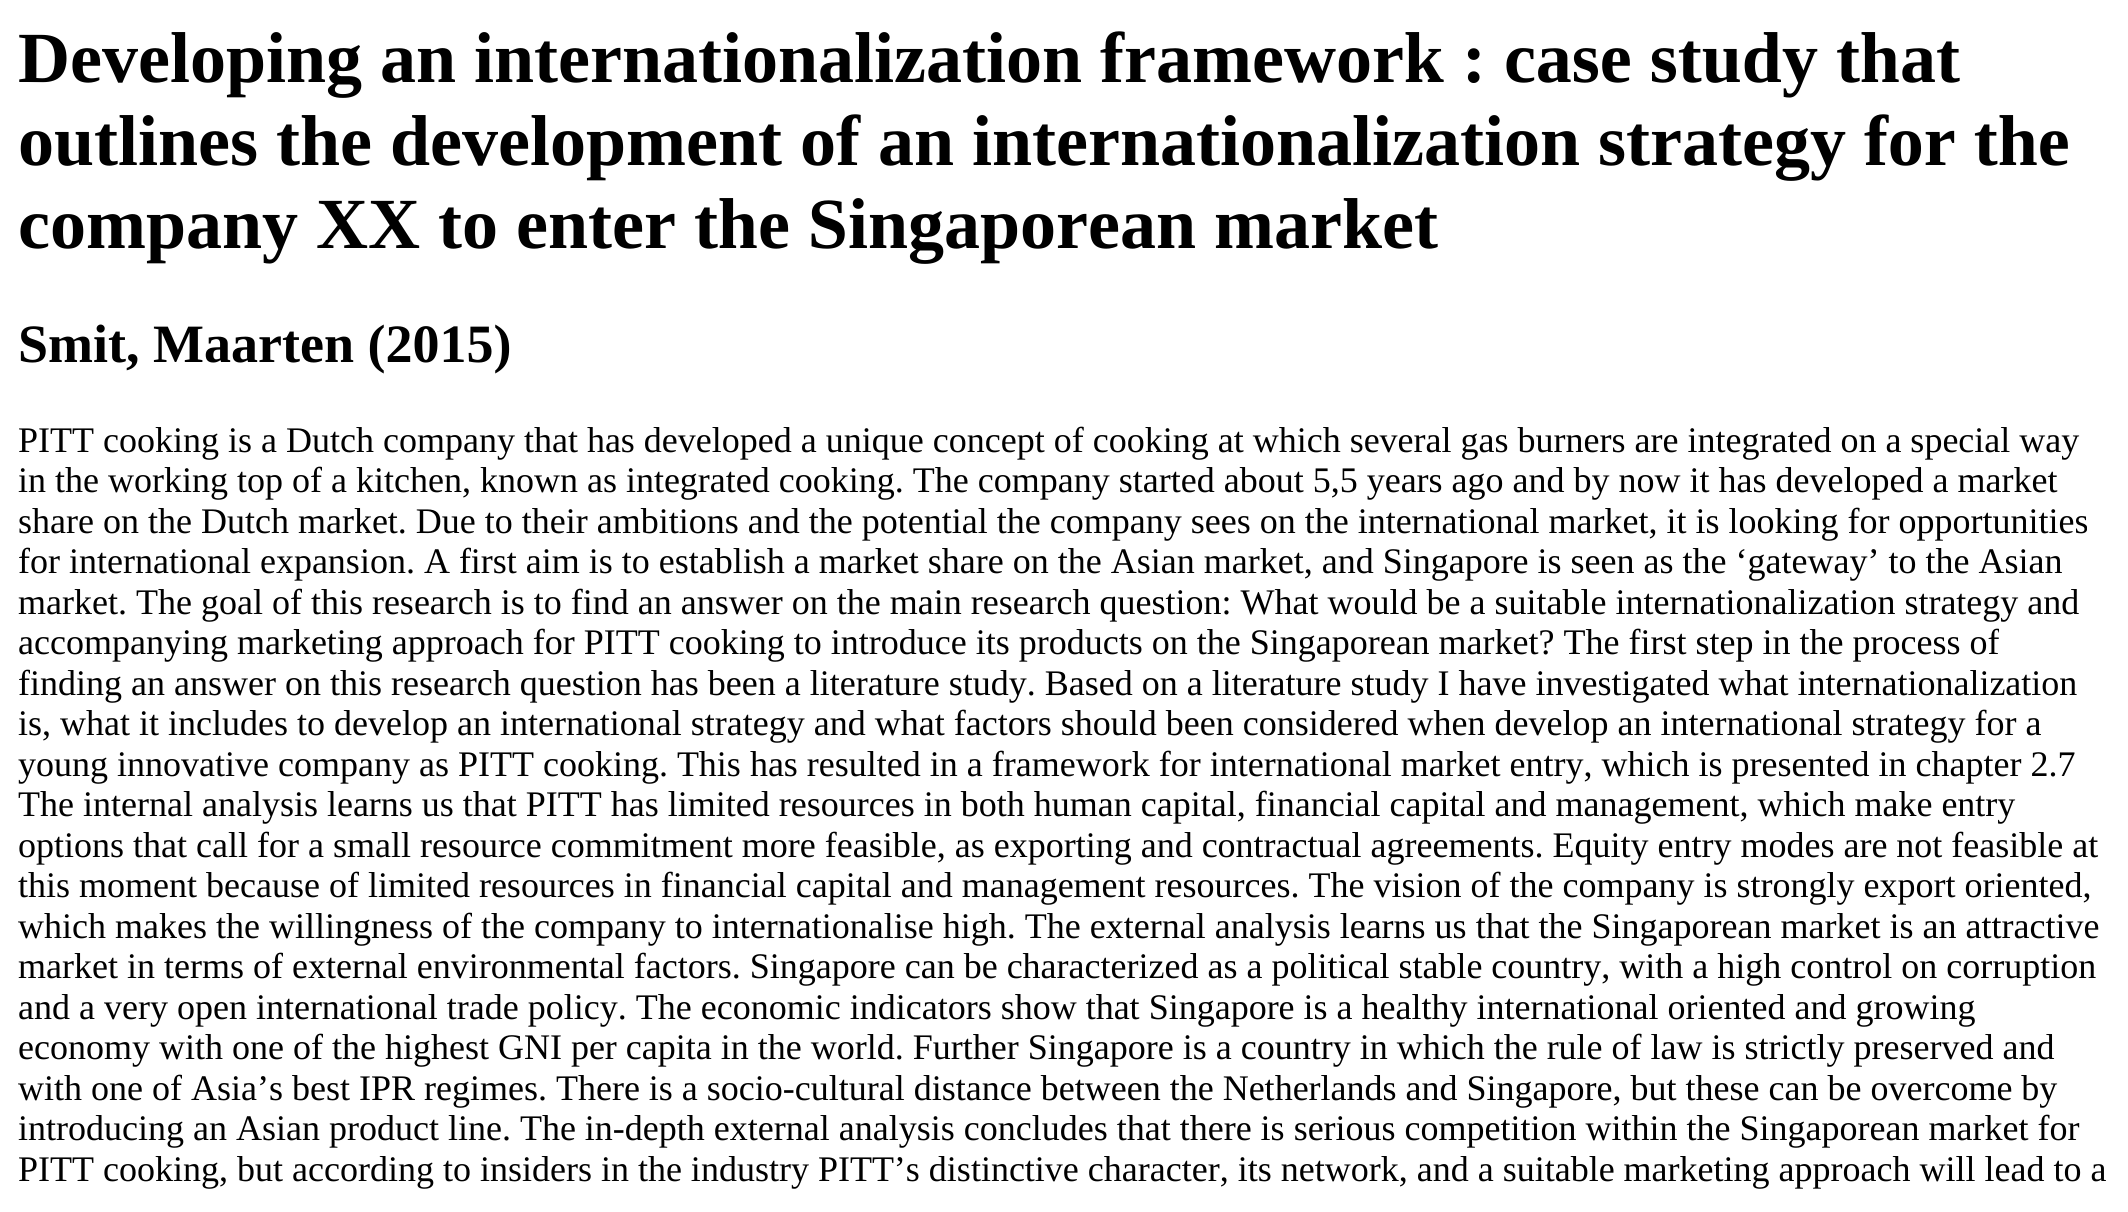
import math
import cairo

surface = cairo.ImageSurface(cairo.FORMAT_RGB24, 2128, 1212)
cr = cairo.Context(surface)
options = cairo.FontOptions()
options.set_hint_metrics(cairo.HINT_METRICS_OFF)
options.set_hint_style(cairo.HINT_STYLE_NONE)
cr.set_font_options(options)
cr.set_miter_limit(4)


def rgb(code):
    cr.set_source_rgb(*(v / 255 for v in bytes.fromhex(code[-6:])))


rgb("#ffffff")
cr.paint()
cr.select_font_face("Liberation Serif", cairo.FONT_SLANT_NORMAL, cairo.FONT_WEIGHT_BOLD)
cr.set_font_size(72)
rgb("#000000")
for x, y, s in [
    (18, 82, "Developing an internationalization framework : case study that"),
    (18, 165, "outlines the development of an internationalization strategy for the"),
    (18, 248, "company XX to enter the Singaporean market"),
]:
    cr.move_to(x, y)
    cr.show_text(s)
cr.set_font_size(54)
cr.move_to(18, 362)
cr.show_text("Smit, Maarten (2015)")
cr.select_font_face("Liberation Serif")
cr.set_font_size(36)
for x, y, s in [
    (18, 452, "PITT cooking is a Dutch company that has developed a unique concept of cooking at which several gas burners are integrated on a special way"),
    (18, 492, "in the working top of a kitchen, known as integrated cooking. The company started about 5,5 years ago and by now it has developed a market"),
    (18, 533, "share on the Dutch market. Due to their ambitions and the potential the company sees on the international market, it is looking for opportunities"),
    (18, 573, "for international expansion. A first aim is to establish a market share on the Asian market, and Singapore is seen as the ‘gateway’ to the Asian"),
    (18, 614, "market. The goal of this research is to find an answer on the main research question: What would be a suitable internationalization strategy and"),
    (18, 654, "accompanying marketing approach for PITT cooking to introduce its products on the Singaporean market? The first step in the process of"),
    (18, 695, "finding an answer on this research question has been a literature study. Based on a literature study I have investigated what internationalization"),
    (18, 735, "is, what it includes to develop an international strategy and what factors should been considered when develop an international strategy for a"),
    (18, 776, "young innovative company as PITT cooking. This has resulted in a framework for international market entry, which is presented in chapter 2.7"),
    (18, 816, "The internal analysis learns us that PITT has limited resources in both human capital, financial capital and management, which make entry"),
    (18, 857, "options that call for a small resource commitment more feasible, as exporting and contractual agreements. Equity entry modes are not feasible at"),
    (18, 897, "this moment because of limited resources in financial capital and management resources. The vision of the company is strongly export oriented,"),
    (18, 938, "which makes the willingness of the company to internationalise high. The external analysis learns us that the Singaporean market is an attractive"),
    (18, 978, "market in terms of external environmental factors. Singapore can be characterized as a political stable country, with a high control on corruption"),
    (18, 1019, "and a very open international trade policy. The economic indicators show that Singapore is a healthy international oriented and growing"),
    (18, 1059, "economy with one of the highest GNI per capita in the world. Further Singapore is a country in which the rule of law is strictly preserved and"),
    (18, 1100, "with one of Asia’s best IPR regimes. There is a socio-cultural distance between the Netherlands and Singapore, but these can be overcome by"),
    (18, 1140, "introducing an Asian product line. The in-depth external analysis concludes that there is serious competition within the Singaporean market for"),
    (18, 1181, "PITT cooking, but according to insiders in the industry PITT’s distinctive character, its network, and a suitable marketing approach will lead to a"),
]:
    cr.move_to(x, y)
    cr.show_text(s)
surface.write_to_png("page.png")
